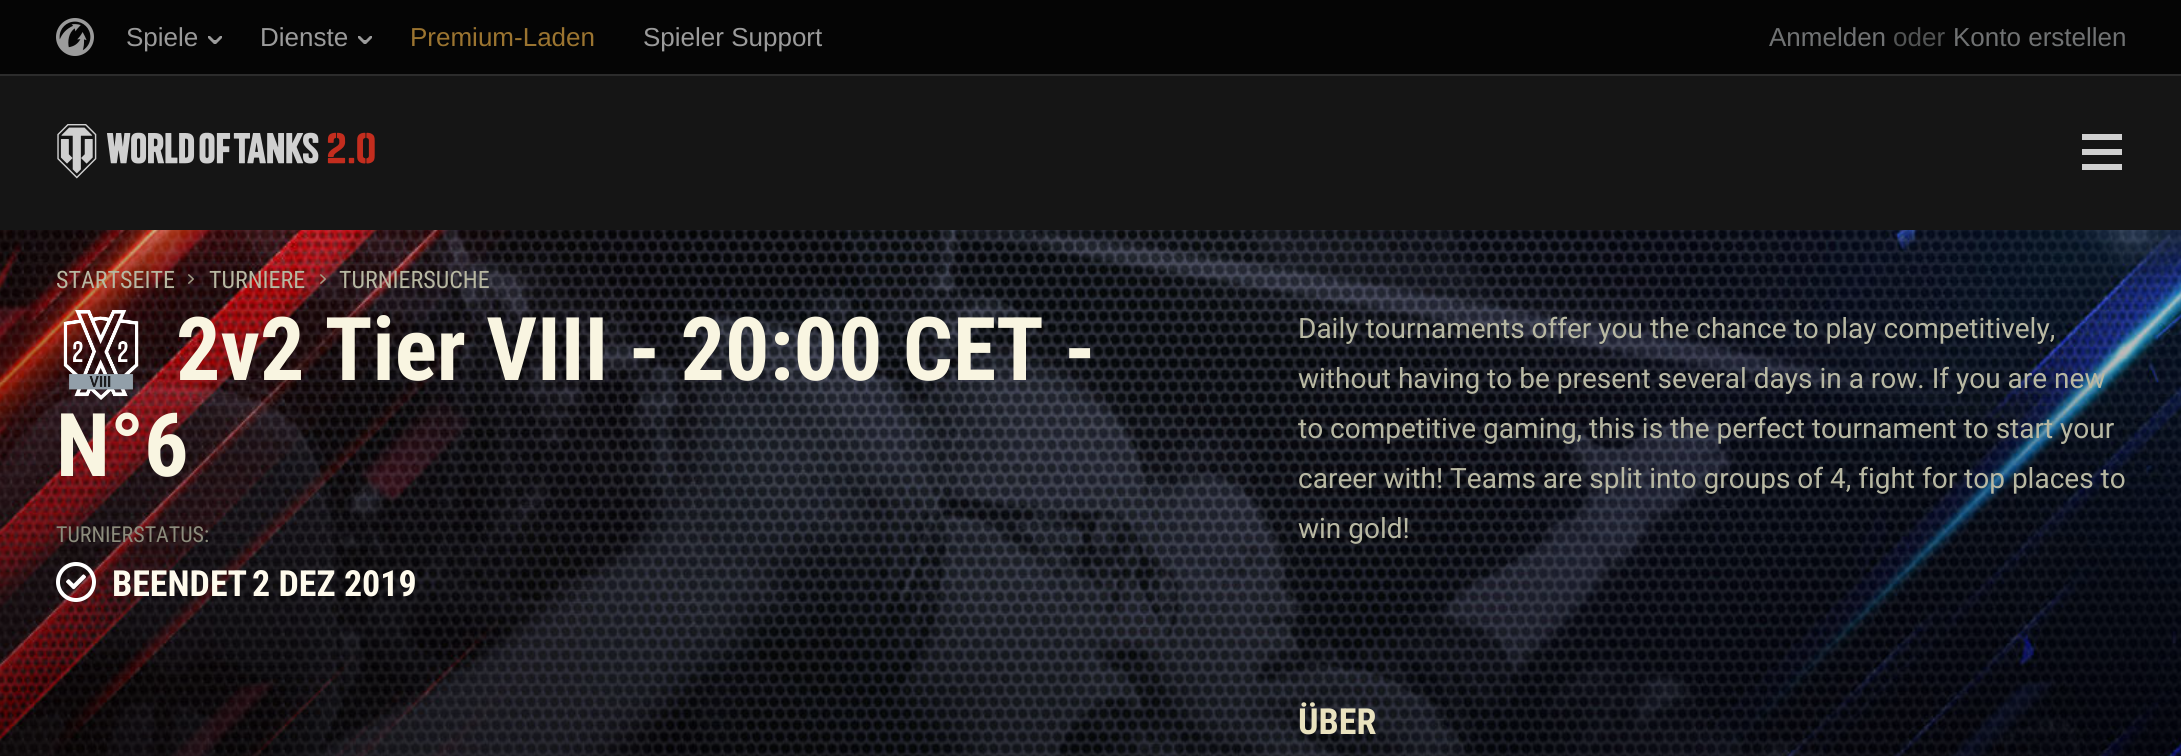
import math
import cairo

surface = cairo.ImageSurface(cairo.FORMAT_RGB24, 2181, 756)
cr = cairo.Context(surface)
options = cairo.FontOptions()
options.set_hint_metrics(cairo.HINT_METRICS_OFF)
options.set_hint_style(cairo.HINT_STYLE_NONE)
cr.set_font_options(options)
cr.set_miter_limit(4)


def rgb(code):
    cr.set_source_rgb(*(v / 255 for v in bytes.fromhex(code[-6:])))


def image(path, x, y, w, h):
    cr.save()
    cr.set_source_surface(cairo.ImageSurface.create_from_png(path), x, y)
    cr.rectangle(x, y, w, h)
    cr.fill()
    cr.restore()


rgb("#ffffff")
cr.paint()
cr.rectangle(-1, -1, 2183, 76)
rgb("#2c2c2c")
cr.stroke()
rgb("#050505")
cr.rectangle(0, 0, 2181, 74)
cr.fill()
image("img/1.png", 56, 18, 38, 38)
image("img/2.png", 208, 36, 14, 8)
image("img/2.png", 358, 36, 14, 8)
rgb("#151515")
cr.rectangle(0, 76, 2181, 154)
cr.fill()
image("img/3.png", 57, 124, 318, 55)
cr.save()
cr.rectangle(2082, 128, 40, 48)
cr.clip()
rgb("#d0d0d0")
cr.new_path()
cr.move_to(2082, 134)
cr.line_to(2124, 134)
cr.line_to(2124, 140)
cr.line_to(2082, 140)
cr.close_path()
cr.move_to(2082, 149)
cr.line_to(2124, 149)
cr.line_to(2124, 155)
cr.line_to(2082, 155)
cr.close_path()
cr.move_to(2124, 164)
cr.line_to(2124, 170)
cr.line_to(2082, 170)
cr.line_to(2082, 164)
cr.close_path()
cr.fill()
cr.restore()
image("img/4.png", 0, 230, 2181, 526)
image("img/5.png", 188, 274, 6, 10)
image("img/6.png", 320, 274, 6, 10)
image("img/7.png", 63, 310, 76, 90)
image("img/8.png", 56, 562, 40, 40)
cr.select_font_face("Liberation Sans")
cr.set_font_size(26)
rgb("#9b9b9b")
cr.move_to(126, 46)
cr.show_text("Spiele")
cr.move_to(260, 46)
cr.show_text("Dienste")
rgb("#9b7430")
cr.move_to(410, 46)
cr.show_text("Premium-Laden")
rgb("#9b9b9b")
cr.move_to(643, 46)
cr.show_text("Spieler Support")
rgb("#707273")
cr.move_to(1769, 46)
cr.show_text("Anmelden")
rgb("#525454")
cr.move_to(1893, 46)
cr.show_text("oder")
rgb("#707273")
cr.move_to(1953, 46)
cr.show_text("Konto erstellen")
cr.select_font_face("Roboto Condensed")
cr.set_font_size(24)
rgb("#b8b8a2")
for x, y, s in [
    (56, 288, "STARTSEITE"),
    (209, 288, "TURNIERE"),
    (339, 288, "TURNIERSUCHE"),
]:
    cr.move_to(x, y)
    cr.show_text(s)
cr.select_font_face("Roboto Condensed", cairo.FONT_SLANT_NORMAL, cairo.FONT_WEIGHT_BOLD)
cr.set_font_size(88)
rgb("#f9f5e1")
cr.move_to(176, 380)
cr.show_text("2v2 Tier VIII - 20:00 CET -")
cr.move_to(56, 476)
cr.show_text("N°6")
cr.select_font_face("Roboto Condensed")
cr.set_font_size(22)
rgb("#8c8c7c")
cr.move_to(56, 542)
cr.show_text("TURNIERSTATUS:")
cr.select_font_face("Roboto Condensed", cairo.FONT_SLANT_NORMAL, cairo.FONT_WEIGHT_BOLD)
cr.set_font_size(36)
rgb("#fffbed")
cr.move_to(112, 596)
cr.show_text("BEENDET")
cr.move_to(252, 596)
cr.show_text("2 DEZ 2019")
cr.select_font_face("Roboto")
cr.set_font_size(28)
rgb("#b8b8a2")
for x, y, s in [
    (1298, 338, "Daily tournaments offer you the chance to play competitively,"),
    (1298, 388, "without having to be present several days in a row. If you are new"),
    (1298, 438, "to competitive gaming, this is the perfect tournament to start your"),
    (1298, 488, "career with! Teams are split into groups of 4, fight for top places to"),
    (1298, 538, "win gold!"),
]:
    cr.move_to(x, y)
    cr.show_text(s)
cr.select_font_face("Roboto Condensed", cairo.FONT_SLANT_NORMAL, cairo.FONT_WEIGHT_BOLD)
cr.set_font_size(36)
rgb("#e9e2bf")
cr.move_to(1298, 734)
cr.show_text("ÜBER")
surface.write_to_png("page.png")
